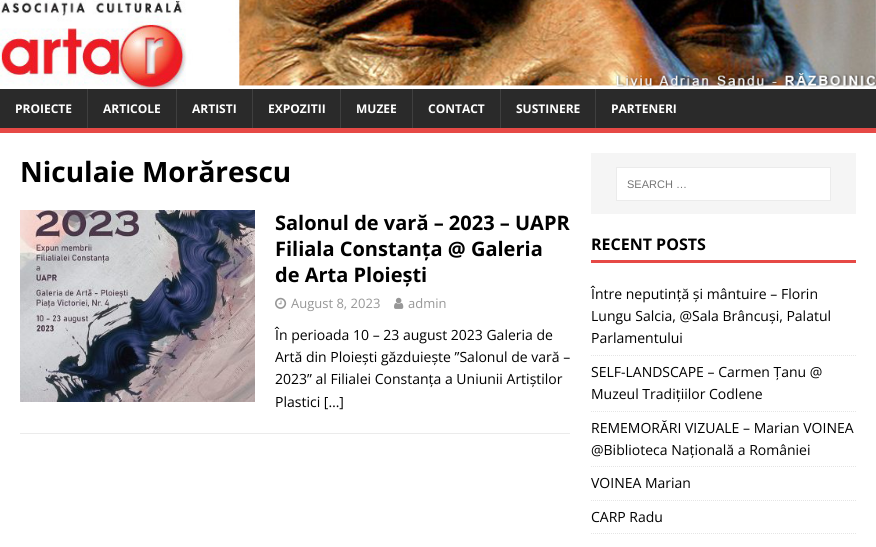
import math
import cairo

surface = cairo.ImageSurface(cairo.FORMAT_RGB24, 876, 547)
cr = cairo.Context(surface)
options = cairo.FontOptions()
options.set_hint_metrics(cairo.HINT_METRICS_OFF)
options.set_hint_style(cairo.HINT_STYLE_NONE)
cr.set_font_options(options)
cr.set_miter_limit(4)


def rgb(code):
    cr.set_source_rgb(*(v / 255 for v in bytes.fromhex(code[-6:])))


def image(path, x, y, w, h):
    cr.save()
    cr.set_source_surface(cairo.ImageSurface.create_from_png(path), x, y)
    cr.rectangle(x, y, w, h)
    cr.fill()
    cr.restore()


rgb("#2a2a2a")
cr.paint()
image("img/1.png", 0, 0, 876, 89)
for x, y, w, h, color in [
    (0, 128, 876, 5, "#e64946"),
    (87, 89, 1, 39, "#3f3f3f"),
    (176, 89, 1, 39, "#3f3f3f"),
    (252, 89, 1, 39, "#3f3f3f"),
    (340, 89, 1, 39, "#3f3f3f"),
    (412, 89, 1, 39, "#3f3f3f"),
    (500, 89, 1, 39, "#3f3f3f"),
    (595, 89, 1, 39, "#3f3f3f"),
    (0, 133, 876, 414, "#ffffff"),
    (20, 433, 550, 1, "#ebebeb"),
]:
    rgb(color)
    cr.rectangle(x, y, w, h)
    cr.fill()
image("img/2.png", 20, 210, 235, 192)
image("img/3.png", 275, 297, 12, 12)
image("img/4.png", 394, 297, 10, 12)
rgb("#f5f5f5")
cr.rectangle(591, 153, 265, 61)
cr.fill()
rgb("#ffffff")
cr.rectangle(616.5, 167.5, 214, 33)
cr.fill_preserve()
rgb("#ebebeb")
cr.set_line_width(1)
cr.stroke()
rgb("#e64946")
cr.rectangle(591, 260, 265, 3)
cr.fill()
cr.new_path()
cr.move_to(591, 355.5)
cr.line_to(856, 355.5)
rgb("#e5e5e5")
cr.set_dash([1, 1])
cr.stroke()
cr.new_path()
cr.move_to(591, 411.5)
cr.line_to(856, 411.5)
cr.stroke()
cr.new_path()
cr.move_to(591, 466.5)
cr.line_to(856, 466.5)
cr.stroke()
cr.new_path()
cr.move_to(591, 500.5)
cr.line_to(856, 500.5)
cr.stroke()
cr.new_path()
cr.move_to(591, 533.5)
cr.line_to(856, 533.5)
cr.stroke()
cr.select_font_face("Open Sans", cairo.FONT_SLANT_NORMAL, cairo.FONT_WEIGHT_BOLD)
cr.set_font_size(12)
rgb("#ffffff")
for x, y, s in [
    (15, 113, "PROIECTE"),
    (103, 113, "ARTICOLE"),
    (192, 113, "ARTISTI"),
    (268, 113, "EXPOZITII"),
    (356, 113, "MUZEE"),
    (428, 113, "CONTACT"),
    (516, 113, "SUSTINERE"),
    (611, 113, "PARTENERI"),
]:
    cr.move_to(x, y)
    cr.show_text(s)
cr.set_font_size(28)
rgb("#000000")
cr.move_to(20, 182)
cr.show_text("Niculaie Morărescu")
cr.set_font_size(20)
for x, y, s in [
    (275, 230, "Salonul de vară – 2023 – UAPR"),
    (275, 256, "Filiala Constanța @ Galeria"),
    (275, 282, "de Arta Ploiești"),
]:
    cr.move_to(x, y)
    cr.show_text(s)
cr.select_font_face("Open Sans")
cr.set_font_size(13)
rgb("#979797")
cr.move_to(291, 308)
cr.show_text("August 8, 2023")
cr.move_to(408, 308)
cr.show_text("admin")
cr.set_font_size(14)
rgb("#000000")
for x, y, s in [
    (275, 340, "În perioada 10 – 23 august 2023 Galeria de"),
    (275, 362, "Artă din Ploiești găzduiește ”Salonul de vară –"),
    (275, 384, "2023” al Filialei Constanța a Uniunii Artiștilor"),
    (275, 407, "Plastici […]"),
]:
    cr.move_to(x, y)
    cr.show_text(s)
cr.select_font_face("Liberation Sans")
cr.set_font_size(11)
rgb("#757575")
cr.move_to(627, 188)
cr.show_text("SEARCH …")
cr.select_font_face("Open Sans", cairo.FONT_SLANT_NORMAL, cairo.FONT_WEIGHT_BOLD)
cr.set_font_size(16)
rgb("#000000")
cr.move_to(591, 250)
cr.show_text("RECENT POSTS")
cr.select_font_face("Open Sans")
cr.set_font_size(14)
for x, y, s in [
    (591, 299, "Între neputință și mântuire – Florin"),
    (591, 321, "Lungu Salcia, @Sala Brâncuși, Palatul"),
    (591, 343, "Parlamentului"),
    (591, 377, "SELF-LANDSCAPE – Carmen Țanu @"),
    (591, 399, "Muzeul Tradițiilor Codlene"),
    (591, 433, "REMEMORĂRI VIZUALE – Marian VOINEA"),
    (591, 455, "@Biblioteca Națională a României"),
    (591, 488, "VOINEA Marian"),
    (591, 522, "CARP Radu"),
]:
    cr.move_to(x, y)
    cr.show_text(s)
surface.write_to_png("page.png")
